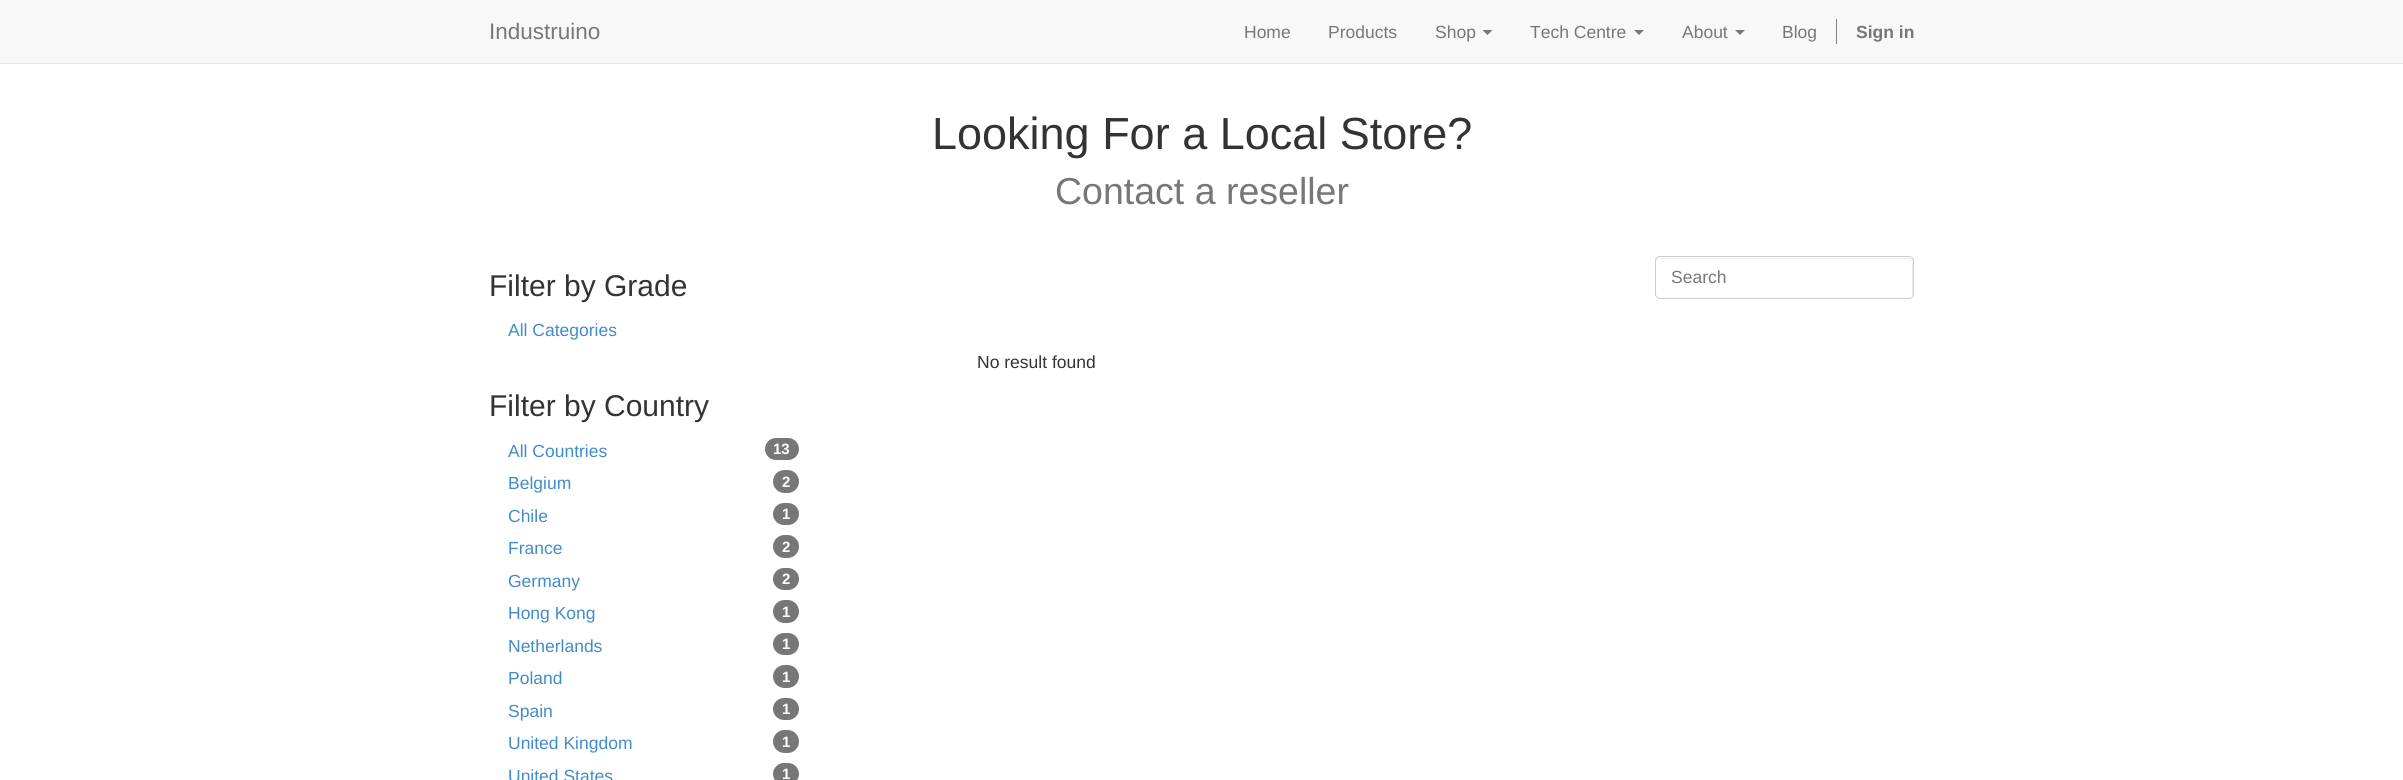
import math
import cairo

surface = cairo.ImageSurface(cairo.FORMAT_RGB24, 2403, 780)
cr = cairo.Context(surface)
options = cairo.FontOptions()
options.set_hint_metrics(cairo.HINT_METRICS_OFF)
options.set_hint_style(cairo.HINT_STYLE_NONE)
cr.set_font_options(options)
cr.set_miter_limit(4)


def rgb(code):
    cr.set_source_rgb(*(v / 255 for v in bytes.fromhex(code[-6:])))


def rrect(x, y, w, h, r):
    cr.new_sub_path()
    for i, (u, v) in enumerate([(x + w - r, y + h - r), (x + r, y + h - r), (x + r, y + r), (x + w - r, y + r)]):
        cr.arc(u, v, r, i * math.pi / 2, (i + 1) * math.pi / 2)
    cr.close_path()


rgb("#ffffff")
cr.paint()
rgb("#f8f8f8")
cr.rectangle(0, 0, 2403, 63)
cr.fill()
rgb("#e7e7e7")
cr.rectangle(0, 63, 2403, 1)
cr.fill()
rgb("#777777")
cr.new_path()
cr.move_to(1482.5, 30)
cr.line_to(1492.5, 30)
cr.line_to(1487.5, 35)
cr.close_path()
cr.fill()
cr.new_path()
cr.move_to(1634, 30)
cr.line_to(1644, 30)
cr.line_to(1639, 35)
cr.close_path()
cr.fill()
cr.new_path()
cr.move_to(1735, 30)
cr.line_to(1745, 30)
cr.line_to(1740, 35)
cr.close_path()
cr.fill()
rgb("#808080")
cr.rectangle(1836, 19, 1, 25)
cr.fill()
rgb("#777777")
rrect(765, 438, 34, 22, 11)
cr.fill()
rrect(773, 470, 26, 23, 11.5)
cr.fill()
rrect(773, 503, 26, 22, 11)
cr.fill()
rrect(773, 535, 26, 23, 11.5)
cr.fill()
rrect(773, 568, 26, 22, 11)
cr.fill()
rrect(773, 600, 26, 23, 11.5)
cr.fill()
rrect(773, 633, 26, 22, 11)
cr.fill()
rrect(773, 665, 26, 23, 11.5)
cr.fill()
rrect(773, 698, 26, 22, 11)
cr.fill()
rrect(773, 730, 26, 23, 11.5)
cr.fill()
rrect(773, 763, 26, 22, 11)
cr.fill()
rgb("#ececec")
cr.new_path()
cr.move_to(1660, 259)
cr.line_to(1909, 259)
cr.curve_to(1911, 259, 1912, 260, 1912, 262)
cr.line_to(1912, 297)
cr.curve_to(1912, 296, 1913, 295, 1913, 294)
cr.line_to(1913, 262)
cr.curve_to(1913, 260, 1911, 258, 1909, 258)
cr.line_to(1660, 258)
cr.curve_to(1658, 258, 1656, 260, 1656, 262)
cr.curve_to(1656, 260, 1658, 259, 1660, 259)
cr.close_path()
cr.fill()
rrect(1655.5, 256.5, 258, 42, 4.5)
rgb("#cccccc")
cr.set_line_width(1)
cr.stroke()
cr.select_font_face("Liberation Sans")
cr.set_font_size(22.5)
rgb("#777777")
cr.move_to(489, 39)
cr.show_text("Industruino")
cr.set_font_size(17.5)
for x, y, s in [
    (1244, 38, "Home"),
    (1328, 38, "Products"),
    (1435, 38, "Shop"),
    (1530, 38, "Tech Centre"),
    (1682, 38, "About"),
    (1782, 38, "Blog"),
]:
    cr.move_to(x, y)
    cr.show_text(s)
cr.select_font_face("Liberation Sans", cairo.FONT_SLANT_NORMAL, cairo.FONT_WEIGHT_BOLD)
cr.move_to(1856, 38)
cr.show_text("Sign in")
cr.select_font_face("Liberation Sans")
cr.set_font_size(45)
rgb("#333333")
cr.move_to(932, 149)
cr.show_text("Looking For a Local Store?")
cr.set_font_size(37.5)
rgb("#777777")
cr.move_to(1055, 204)
cr.show_text("Contact a reseller")
cr.set_font_size(30)
rgb("#333333")
cr.move_to(489, 296)
cr.show_text("Filter by Grade")
cr.set_font_size(17.5)
rgb("#428bca")
cr.move_to(508, 336)
cr.show_text("All Categories")
cr.set_font_size(30)
rgb("#333333")
cr.move_to(489, 416)
cr.show_text("Filter by Country")
cr.set_font_size(17.5)
rgb("#428bca")
cr.move_to(508, 457)
cr.show_text("All Countries")
cr.select_font_face("Liberation Sans", cairo.FONT_SLANT_NORMAL, cairo.FONT_WEIGHT_BOLD)
cr.set_font_size(15)
rgb("#ffffff")
cr.move_to(773, 454)
cr.show_text("13")
cr.select_font_face("Liberation Sans")
cr.set_font_size(17.5)
rgb("#428bca")
cr.move_to(508, 489)
cr.show_text("Belgium")
cr.select_font_face("Liberation Sans", cairo.FONT_SLANT_NORMAL, cairo.FONT_WEIGHT_BOLD)
cr.set_font_size(15)
rgb("#ffffff")
cr.move_to(782, 487)
cr.show_text("2")
cr.select_font_face("Liberation Sans")
cr.set_font_size(17.5)
rgb("#428bca")
cr.move_to(508, 522)
cr.show_text("Chile")
cr.select_font_face("Liberation Sans", cairo.FONT_SLANT_NORMAL, cairo.FONT_WEIGHT_BOLD)
cr.set_font_size(15)
rgb("#ffffff")
cr.move_to(782, 519)
cr.show_text("1")
cr.select_font_face("Liberation Sans")
cr.set_font_size(17.5)
rgb("#428bca")
cr.move_to(508, 554)
cr.show_text("France")
cr.select_font_face("Liberation Sans", cairo.FONT_SLANT_NORMAL, cairo.FONT_WEIGHT_BOLD)
cr.set_font_size(15)
rgb("#ffffff")
cr.move_to(782, 552)
cr.show_text("2")
cr.select_font_face("Liberation Sans")
cr.set_font_size(17.5)
rgb("#428bca")
cr.move_to(508, 587)
cr.show_text("Germany")
cr.select_font_face("Liberation Sans", cairo.FONT_SLANT_NORMAL, cairo.FONT_WEIGHT_BOLD)
cr.set_font_size(15)
rgb("#ffffff")
cr.move_to(782, 584)
cr.show_text("2")
cr.select_font_face("Liberation Sans")
cr.set_font_size(17.5)
rgb("#428bca")
cr.move_to(508, 619)
cr.show_text("Hong Kong")
cr.select_font_face("Liberation Sans", cairo.FONT_SLANT_NORMAL, cairo.FONT_WEIGHT_BOLD)
cr.set_font_size(15)
rgb("#ffffff")
cr.move_to(782, 617)
cr.show_text("1")
cr.select_font_face("Liberation Sans")
cr.set_font_size(17.5)
rgb("#428bca")
cr.move_to(508, 652)
cr.show_text("Netherlands")
cr.select_font_face("Liberation Sans", cairo.FONT_SLANT_NORMAL, cairo.FONT_WEIGHT_BOLD)
cr.set_font_size(15)
rgb("#ffffff")
cr.move_to(782, 649)
cr.show_text("1")
cr.select_font_face("Liberation Sans")
cr.set_font_size(17.5)
rgb("#428bca")
cr.move_to(508, 684)
cr.show_text("Poland")
cr.select_font_face("Liberation Sans", cairo.FONT_SLANT_NORMAL, cairo.FONT_WEIGHT_BOLD)
cr.set_font_size(15)
rgb("#ffffff")
cr.move_to(782, 682)
cr.show_text("1")
cr.select_font_face("Liberation Sans")
cr.set_font_size(17.5)
rgb("#428bca")
cr.move_to(508, 717)
cr.show_text("Spain")
cr.select_font_face("Liberation Sans", cairo.FONT_SLANT_NORMAL, cairo.FONT_WEIGHT_BOLD)
cr.set_font_size(15)
rgb("#ffffff")
cr.move_to(782, 714)
cr.show_text("1")
cr.select_font_face("Liberation Sans")
cr.set_font_size(17.5)
rgb("#428bca")
cr.move_to(508, 749)
cr.show_text("United Kingdom")
cr.select_font_face("Liberation Sans", cairo.FONT_SLANT_NORMAL, cairo.FONT_WEIGHT_BOLD)
cr.set_font_size(15)
rgb("#ffffff")
cr.move_to(782, 747)
cr.show_text("1")
cr.select_font_face("Liberation Sans")
cr.set_font_size(17.5)
rgb("#428bca")
cr.move_to(508, 782)
cr.show_text("United States")
cr.select_font_face("Liberation Sans", cairo.FONT_SLANT_NORMAL, cairo.FONT_WEIGHT_BOLD)
cr.set_font_size(15)
rgb("#ffffff")
cr.move_to(782, 779)
cr.show_text("1")
cr.select_font_face("Liberation Sans")
cr.set_font_size(17.5)
rgb("#777777")
cr.move_to(1671, 283)
cr.show_text("Search")
rgb("#333333")
cr.move_to(977, 368)
cr.show_text("No result found")
surface.write_to_png("page.png")
